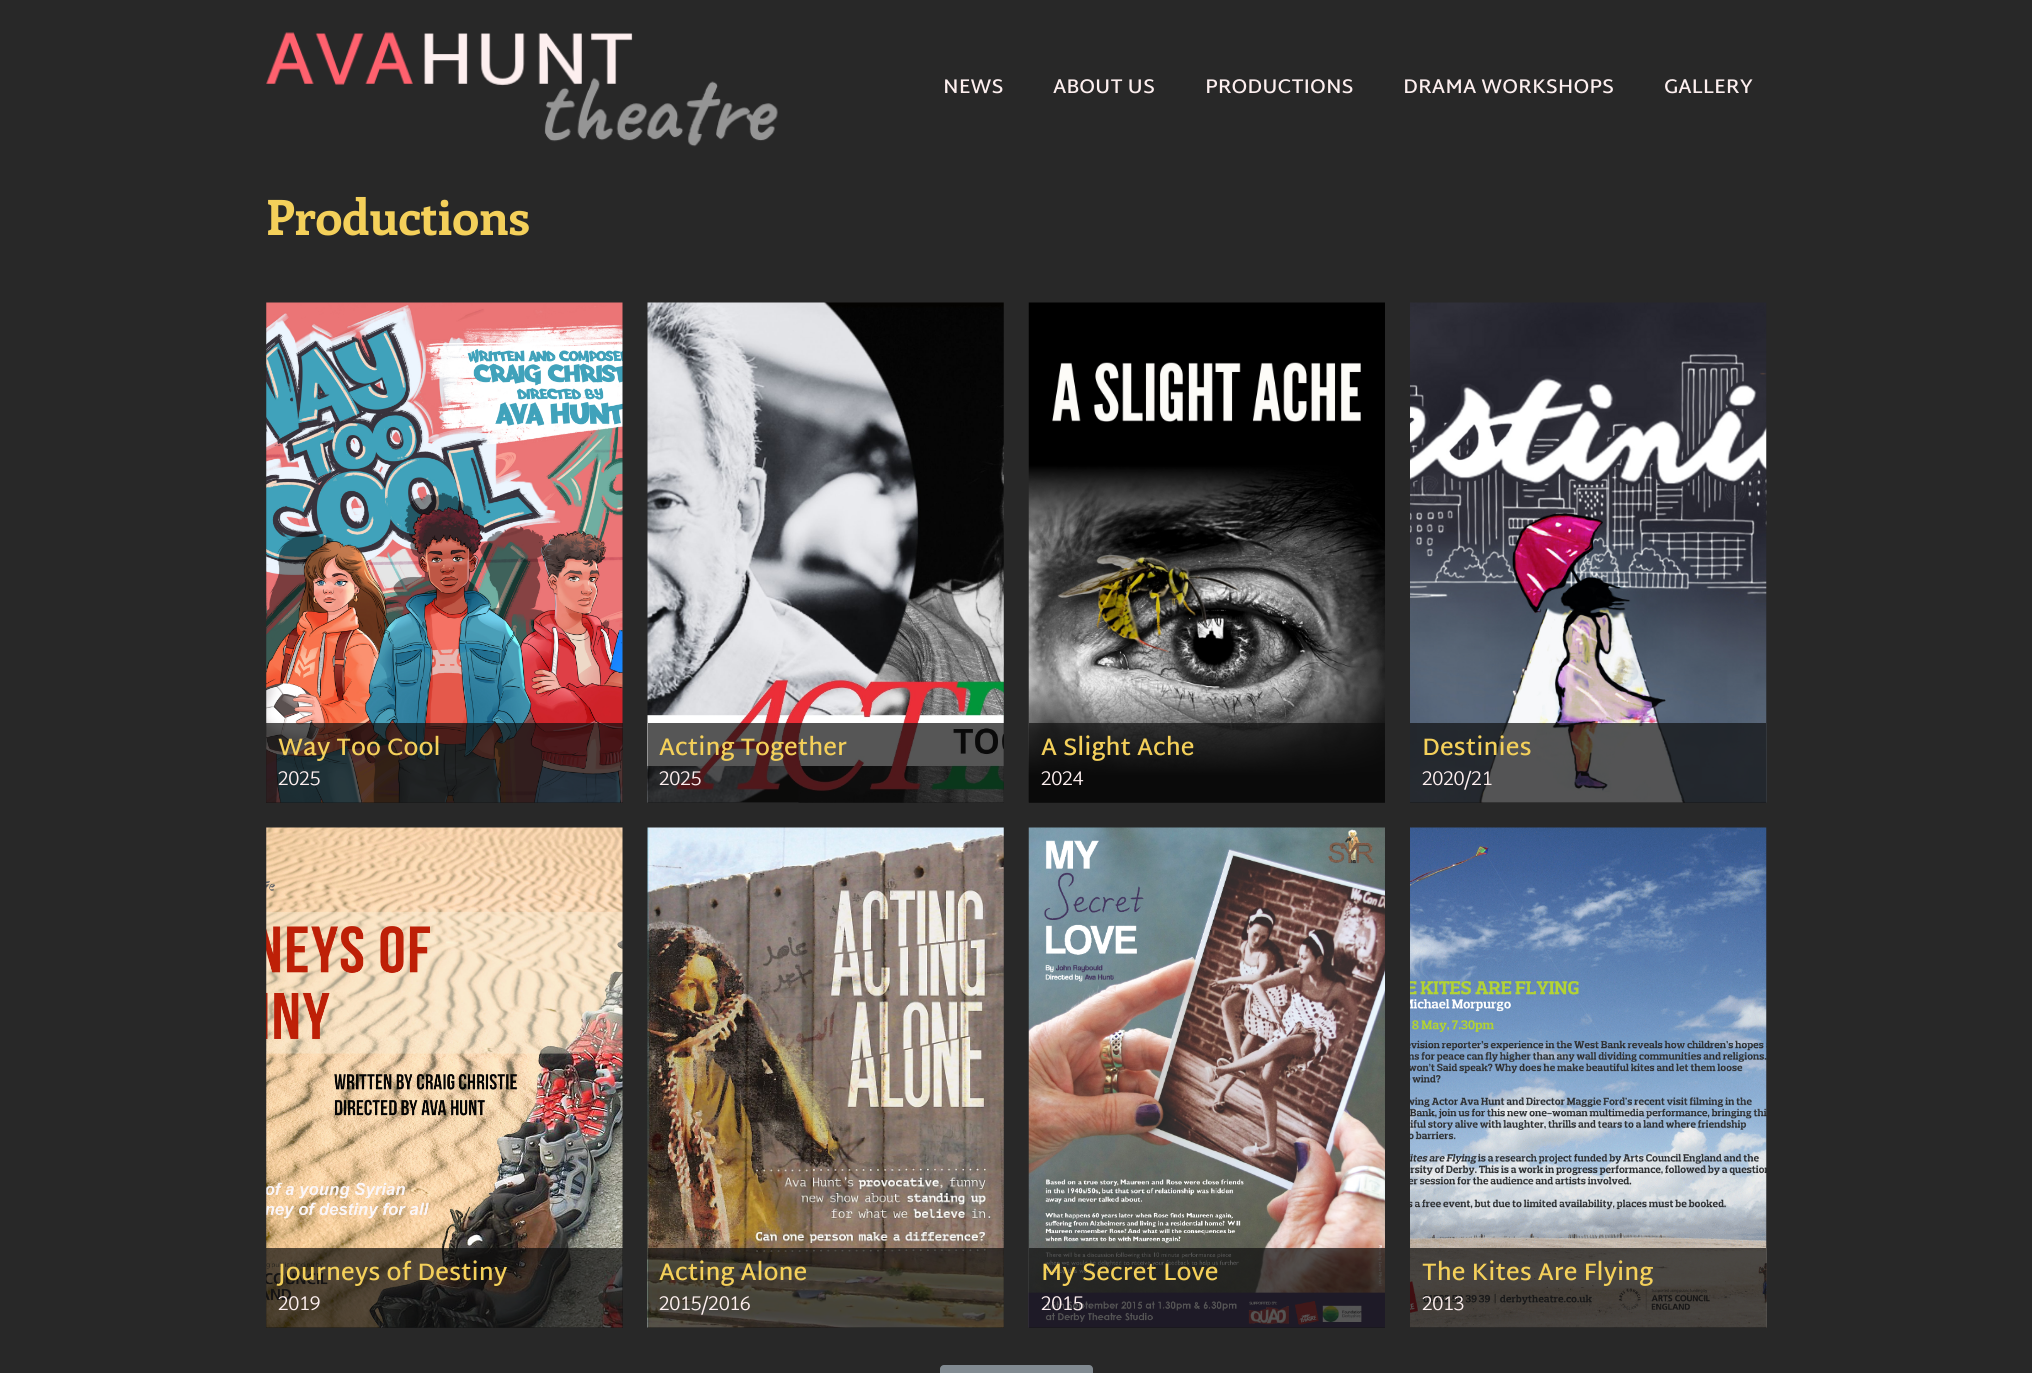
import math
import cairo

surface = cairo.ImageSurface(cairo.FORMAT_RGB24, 2032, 1373)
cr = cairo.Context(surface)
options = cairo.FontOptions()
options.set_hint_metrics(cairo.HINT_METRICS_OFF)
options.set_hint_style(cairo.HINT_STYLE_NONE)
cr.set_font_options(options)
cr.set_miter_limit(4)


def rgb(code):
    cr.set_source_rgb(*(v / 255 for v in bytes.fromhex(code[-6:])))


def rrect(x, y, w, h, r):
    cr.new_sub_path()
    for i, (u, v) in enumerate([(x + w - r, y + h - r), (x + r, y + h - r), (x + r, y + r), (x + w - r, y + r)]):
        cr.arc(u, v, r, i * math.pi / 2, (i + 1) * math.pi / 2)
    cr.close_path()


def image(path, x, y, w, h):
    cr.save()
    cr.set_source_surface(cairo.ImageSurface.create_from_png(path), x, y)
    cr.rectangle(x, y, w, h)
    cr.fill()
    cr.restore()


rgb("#282828")
cr.paint()
image("img/1.png", 266, 32, 512, 115)
image("img/2.png", 266, 302, 357, 501)
cr.set_source_rgba(0.059, 0.059, 0.059, 0.7)
cr.rectangle(266, 723, 357, 80)
cr.fill()
image("img/3.png", 647, 302, 357, 501)
cr.rectangle(648, 723, 356, 80)
cr.fill()
image("img/4.png", 1028, 302, 357, 501)
cr.rectangle(1029, 723, 356, 80)
cr.fill()
image("img/5.png", 1410, 302, 357, 501)
cr.rectangle(1410, 723, 356, 80)
cr.fill()
image("img/6.png", 266, 827, 357, 501)
cr.rectangle(266, 1248, 357, 80)
cr.fill()
image("img/7.png", 647, 827, 357, 501)
cr.rectangle(648, 1248, 356, 80)
cr.fill()
image("img/8.png", 1028, 827, 357, 501)
cr.rectangle(1029, 1248, 356, 80)
cr.fill()
image("img/9.png", 1410, 827, 357, 501)
cr.rectangle(1410, 1248, 356, 80)
cr.fill()
rgb("#818a91")
rrect(940, 1365, 153, 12, 4)
cr.fill()
cr.select_font_face("Martel Sans SemiBold")
cr.set_font_size(20)
rgb("#fdefef")
for x, y, s in [
    (943, 93, "NEWS"),
    (1053, 93, "ABOUT US"),
    (1205, 93, "PRODUCTIONS"),
    (1403, 93, "DRAMA WORKSHOPS"),
    (1664, 93, "GALLERY"),
]:
    cr.move_to(x, y)
    cr.show_text(s)
cr.select_font_face("Enriqueta", cairo.FONT_SLANT_NORMAL, cairo.FONT_WEIGHT_BOLD)
cr.set_font_size(48.75)
rgb("#f4d05a")
cr.move_to(266, 235)
cr.show_text("Productions")
cr.select_font_face("Martel Sans SemiBold")
cr.set_font_size(24)
cr.move_to(278, 755)
cr.show_text("Way Too Cool")
cr.select_font_face("Martel Sans Light")
cr.set_font_size(20)
rgb("#fdefef")
cr.move_to(278, 785)
cr.show_text("2025")
cr.select_font_face("Martel Sans SemiBold")
cr.set_font_size(24)
rgb("#f4d05a")
cr.move_to(659, 755)
cr.show_text("Acting Together")
cr.select_font_face("Martel Sans Light")
cr.set_font_size(20)
rgb("#fdefef")
cr.move_to(659, 785)
cr.show_text("2025")
cr.select_font_face("Martel Sans SemiBold")
cr.set_font_size(24)
rgb("#f4d05a")
cr.move_to(1041, 755)
cr.show_text("A Slight Ache")
cr.select_font_face("Martel Sans Light")
cr.set_font_size(20)
rgb("#fdefef")
cr.move_to(1041, 785)
cr.show_text("2024")
cr.select_font_face("Martel Sans SemiBold")
cr.set_font_size(24)
rgb("#f4d05a")
cr.move_to(1422, 755)
cr.show_text("Destinies")
cr.select_font_face("Martel Sans Light")
cr.set_font_size(20)
rgb("#fdefef")
cr.move_to(1422, 785)
cr.show_text("2020/21")
cr.select_font_face("Martel Sans SemiBold")
cr.set_font_size(24)
rgb("#f4d05a")
cr.move_to(278, 1280)
cr.show_text("Journeys of Destiny")
cr.select_font_face("Martel Sans Light")
cr.set_font_size(20)
rgb("#fdefef")
cr.move_to(278, 1310)
cr.show_text("2019")
cr.select_font_face("Martel Sans SemiBold")
cr.set_font_size(24)
rgb("#f4d05a")
cr.move_to(659, 1280)
cr.show_text("Acting Alone")
cr.select_font_face("Martel Sans Light")
cr.set_font_size(20)
rgb("#fdefef")
cr.move_to(659, 1310)
cr.show_text("2015/2016")
cr.select_font_face("Martel Sans SemiBold")
cr.set_font_size(24)
rgb("#f4d05a")
cr.move_to(1041, 1280)
cr.show_text("My Secret Love")
cr.select_font_face("Martel Sans Light")
cr.set_font_size(20)
rgb("#fdefef")
cr.move_to(1041, 1310)
cr.show_text("2015")
cr.select_font_face("Martel Sans SemiBold")
cr.set_font_size(24)
rgb("#f4d05a")
cr.move_to(1422, 1280)
cr.show_text("The Kites Are Flying")
cr.select_font_face("Martel Sans Light")
cr.set_font_size(20)
rgb("#fdefef")
cr.move_to(1422, 1310)
cr.show_text("2013")
surface.write_to_png("page.png")
